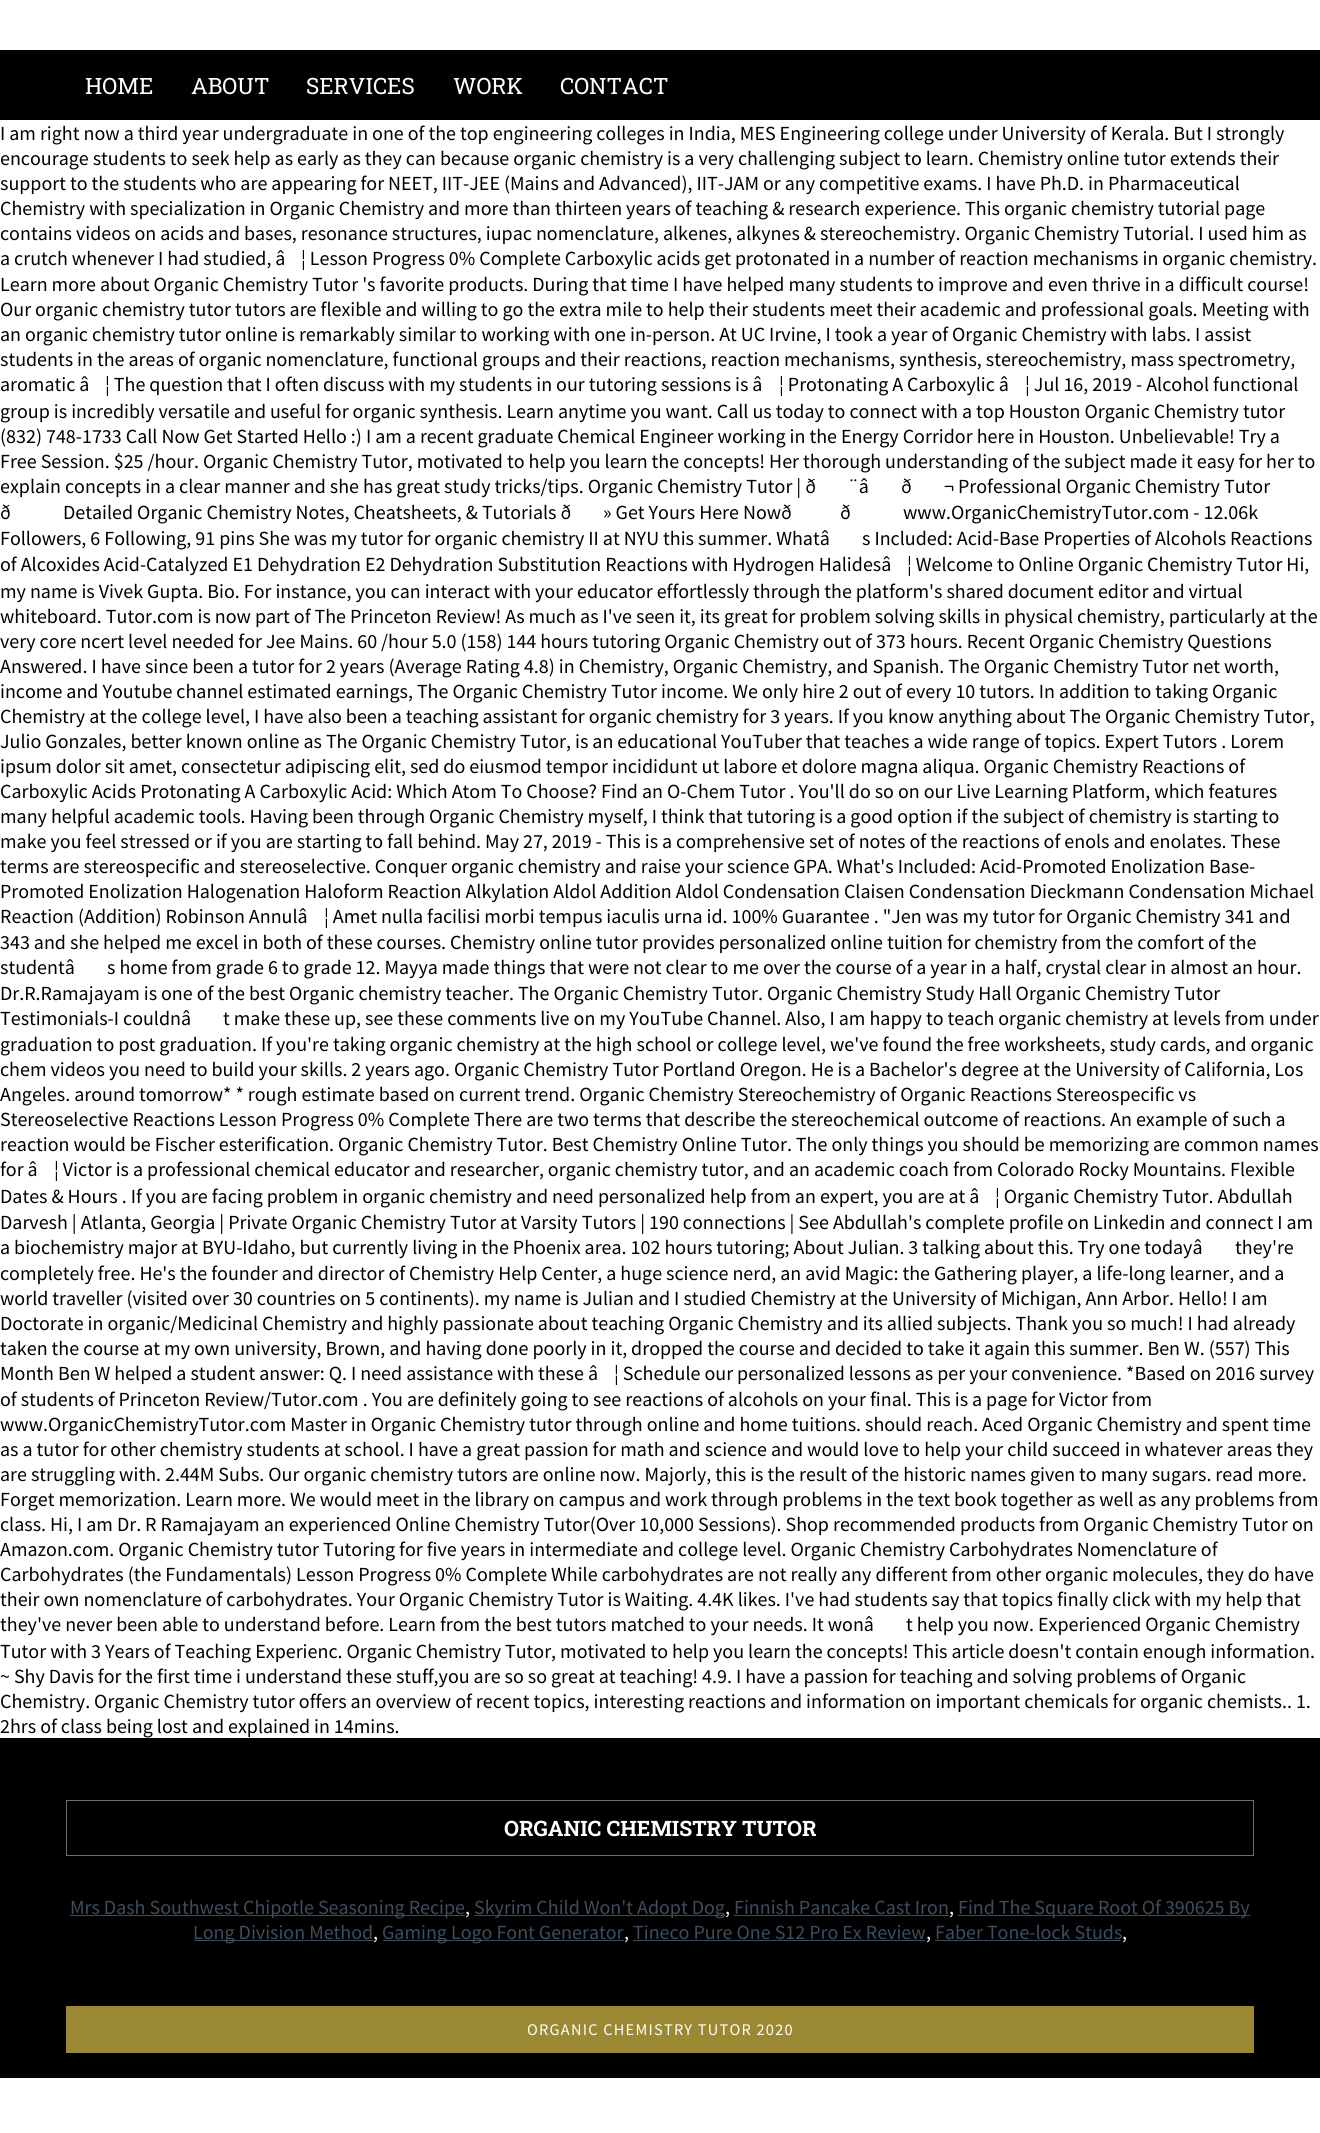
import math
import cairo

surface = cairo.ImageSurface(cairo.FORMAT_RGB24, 1320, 2133)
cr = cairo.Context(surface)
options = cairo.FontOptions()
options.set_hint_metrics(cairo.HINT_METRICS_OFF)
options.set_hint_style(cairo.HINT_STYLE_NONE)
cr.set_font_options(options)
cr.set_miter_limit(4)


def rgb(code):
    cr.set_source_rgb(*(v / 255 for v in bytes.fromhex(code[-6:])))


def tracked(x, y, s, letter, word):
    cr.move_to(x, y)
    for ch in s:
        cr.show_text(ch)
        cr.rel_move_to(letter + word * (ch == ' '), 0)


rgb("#ffffff")
cr.paint()
rgb("#000000")
cr.rectangle(0, 50, 1320, 70)
cr.fill()
cr.rectangle(0, 1738, 1320, 340)
cr.fill()
cr.rectangle(66.5, 1800.5, 1187, 55)
rgb("#6c6c6c")
cr.set_line_width(1)
cr.stroke()
for x, y, w, h, color in [
    (70, 1915, 395, 1, "#3e4d5b"),
    (474, 1915, 251, 1, "#3e4d5b"),
    (734, 1915, 215, 1, "#3e4d5b"),
    (958, 1915, 292, 1, "#3e4d5b"),
    (194, 1940, 180, 1, "#3e4d5b"),
    (383, 1940, 241, 1, "#3e4d5b"),
    (633, 1940, 292, 1, "#3e4d5b"),
    (935, 1940, 186, 1, "#3e4d5b"),
    (66, 2006, 1188, 47, "#9a8832"),
]:
    rgb(color)
    cr.rectangle(x, y, w, h)
    cr.fill()
cr.select_font_face("Roboto Slab")
cr.set_font_size(22.5)
rgb("#ffffff")
for x, y, s in [
    (85, 94, "HOME"),
    (191, 94, "ABOUT"),
    (306, 94, "SERVICES"),
    (453, 94, "WORK"),
    (560, 94, "CONTACT"),
]:
    cr.move_to(x, y)
    cr.show_text(s)
cr.select_font_face("Source Sans Pro")
cr.set_font_size(20)
rgb("#000000")
for x, y, s in [
    (0, 140, "I am right now a third year undergraduate in one of the top engineering colleges in India, MES Engineering college under University of Kerala. But I strongly"),
    (0, 165, "encourage students to seek help as early as they can because organic chemistry is a very challenging subject to learn. Chemistry online tutor extends their"),
    (0, 190, "support to the students who are appearing for NEET, IIT-JEE (Mains and Advanced), IIT-JAM or any competitive exams. I have Ph.D. in Pharmaceutical"),
    (0, 215, "Chemistry with specialization in Organic Chemistry and more than thirteen years of teaching & research experience. This organic chemistry tutorial page"),
    (0, 240, "contains videos on acids and bases, resonance structures, iupac nomenclature, alkenes, alkynes & stereochemistry. Organic Chemistry Tutorial. I used him as"),
    (0, 265, "a crutch whenever I had studied, â"),
    (301, 265, "¦ Lesson Progress 0% Complete Carboxylic acids get protonated in a number of reaction mechanisms in organic chemistry."),
    (0, 291, "Learn more about Organic Chemistry Tutor 's favorite products. During that time I have helped many students to improve and even thrive in a difficult course!"),
    (0, 316, "Our organic chemistry tutor tutors are flexible and willing to go the extra mile to help their students meet their academic and professional goals. Meeting with"),
    (0, 341, "an organic chemistry tutor online is remarkably similar to working with one in-person. At UC Irvine, I took a year of Organic Chemistry with labs. I assist"),
    (0, 366, "students in the areas of organic nomenclature, functional groups and their reactions, reaction mechanisms, synthesis, stereochemistry, mass spectrometry,"),
    (0, 391, "aromatic â"),
    (105, 391, "¦ The question that I often discuss with my students in our tutoring sessions is â"),
    (779, 391, "¦ Protonating A Carboxylic â"),
    (1025, 391, "¦ Jul 16, 2019 - Alcohol functional"),
    (0, 418, "group is incredibly versatile and useful for organic synthesis. Learn anytime you want. Call us today to connect with a top Houston Organic Chemistry tutor"),
    (0, 443, "(832) 748-1733 Call Now Get Started Hello :) I am a recent graduate Chemical Engineer working in the Energy Corridor here in Houston. Unbelievable! Try a"),
    (0, 468, "Free Session. $25 /hour. Organic Chemistry Tutor, motivated to help you learn the concepts! Her thorough understanding of the subject made it easy for her to"),
    (0, 493, "explain concepts in a clear manner and she has great study tricks/tips. Organic Chemistry Tutor | ð"),
    (848, 493, "¨â"),
    (901, 493, "ð"),
    (944, 493, "¬ Professional Organic Chemistry Tutor"),
    (0, 519, "ð"),
    (63, 519, "Detailed Organic Chemistry Notes, Cheatsheets, & Tutorials ð"),
    (603, 519, "» Get Yours Here Nowð"),
    (840, 519, "ð"),
    (903, 519, "www.OrganicChemistryTutor.com - 12.06k"),
    (0, 545, "Followers, 6 Following, 91 pins She was my tutor for organic chemistry II at NYU this summer. Whatâ"),
    (862, 545, "s Included: Acid-Base Properties of Alcohols Reactions"),
    (0, 571, "of Alcoxides Acid-Catalyzed E1 Dehydration E2 Dehydration Substitution Reactions with Hydrogen Halidesâ"),
    (907, 571, "¦ Welcome to Online Organic Chemistry Tutor Hi,"),
    (0, 598, "my name is Vivek Gupta. Bio. For instance, you can interact with your educator effortlessly through the platform's shared document editor and virtual"),
    (0, 623, "whiteboard. Tutor.com is now part of The Princeton Review! As much as I've seen it, its great for problem solving skills in physical chemistry, particularly at the"),
    (0, 648, "very core ncert level needed for Jee Mains. 60 /hour 5.0 (158) 144 hours tutoring Organic Chemistry out of 373 hours. Recent Organic Chemistry Questions"),
    (0, 673, "Answered. I have since been a tutor for 2 years (Average Rating 4.8) in Chemistry, Organic Chemistry, and Spanish. The Organic Chemistry Tutor net worth,"),
    (0, 698, "income and Youtube channel estimated earnings, The Organic Chemistry Tutor income. We only hire 2 out of every 10 tutors. In addition to taking Organic"),
    (0, 723, "Chemistry at the college level, I have also been a teaching assistant for organic chemistry for 3 years. If you know anything about The Organic Chemistry Tutor,"),
    (0, 748, "Julio Gonzales, better known online as The Organic Chemistry Tutor, is an educational YouTuber that teaches a wide range of topics. Expert Tutors . Lorem"),
    (0, 773, "ipsum dolor sit amet, consectetur adipiscing elit, sed do eiusmod tempor incididunt ut labore et dolore magna aliqua. Organic Chemistry Reactions of"),
    (0, 798, "Carboxylic Acids Protonating A Carboxylic Acid: Which Atom To Choose? Find an O-Chem Tutor . You'll do so on our Live Learning Platform, which features"),
    (0, 823, "many helpful academic tools. Having been through Organic Chemistry myself, I think that tutoring is a good option if the subject of chemistry is starting to"),
    (0, 848, "make you feel stressed or if you are starting to fall behind. May 27, 2019 - This is a comprehensive set of notes of the reactions of enols and enolates. These"),
    (0, 873, "terms are stereospecific and stereoselective. Conquer organic chemistry and raise your science GPA. What's Included: Acid-Promoted Enolization Base-"),
    (0, 898, "Promoted Enolization Halogenation Haloform Reaction Alkylation Aldol Addition Aldol Condensation Claisen Condensation Dieckmann Condensation Michael"),
    (0, 923, "Reaction (Addition) Robinson Annulâ"),
    (324, 923, "¦ Amet nulla facilisi morbi tempus iaculis urna id. 100% Guarantee . \"Jen was my tutor for Organic Chemistry 341 and"),
    (0, 949, "343 and she helped me excel in both of these courses. Chemistry online tutor provides personalized online tuition for chemistry from the comfort of the"),
    (0, 974, "studentâ"),
    (107, 974, "s home from grade 6 to grade 12. Mayya made things that were not clear to me over the course of a year in a half, crystal clear in almost an hour."),
    (0, 1000, "Dr.R.Ramajayam is one of the best Organic chemistry teacher. The Organic Chemistry Tutor. Organic Chemistry Study Hall Organic Chemistry Tutor"),
    (0, 1025, "Testimonials-I couldnâ"),
    (223, 1025, "t make these up, see these comments live on my YouTube Channel. Also, I am happy to teach organic chemistry at levels from under"),
    (0, 1051, "graduation to post graduation. If you're taking organic chemistry at the high school or college level, we've found the free worksheets, study cards, and organic"),
    (0, 1076, "chem videos you need to build your skills. 2 years ago. Organic Chemistry Tutor Portland Oregon. He is a Bachelor's degree at the University of California, Los"),
    (0, 1101, "Angeles. around tomorrow* * rough estimate based on current trend. Organic Chemistry Stereochemistry of Organic Reactions Stereospecific vs"),
    (0, 1126, "Stereoselective Reactions Lesson Progress 0% Complete There are two terms that describe the stereochemical outcome of reactions. An example of such a"),
    (0, 1151, "reaction would be Fischer esterification. Organic Chemistry Tutor. Best Chemistry Online Tutor. The only things you should be memorizing are common names"),
    (0, 1176, "for â"),
    (54, 1176, "¦ Victor is a professional chemical educator and researcher, organic chemistry tutor, and an academic coach from Colorado Rocky Mountains. Flexible"),
    (0, 1203, "Dates & Hours . If you are facing problem in organic chemistry and need personalized help from an expert, you are at â"),
    (995, 1203, "¦ Organic Chemistry Tutor. Abdullah"),
    (0, 1229, "Darvesh | Atlanta, Georgia | Private Organic Chemistry Tutor at Varsity Tutors | 190 connections | See Abdullah's complete profile on Linkedin and connect I am"),
    (0, 1254, "a biochemistry major at BYU-Idaho, but currently living in the Phoenix area. 102 hours tutoring; About Julian. 3 talking about this. Try one todayâ"),
    (1235, 1254, "they're"),
    (0, 1280, "completely free. He's the founder and director of Chemistry Help Center, a huge science nerd, an avid Magic: the Gathering player, a life-long learner, and a"),
    (0, 1305, "world traveller (visited over 30 countries on 5 continents). my name is Julian and I studied Chemistry at the University of Michigan, Ann Arbor. Hello! I am"),
    (0, 1330, "Doctorate in organic/Medicinal Chemistry and highly passionate about teaching Organic Chemistry and its allied subjects. Thank you so much! I had already"),
    (0, 1355, "taken the course at my own university, Brown, and having done poorly in it, dropped the course and decided to take it again this summer. Ben W. (557) This"),
    (0, 1380, "Month Ben W helped a student answer: Q. I need assistance with these â"),
    (614, 1380, "¦ Schedule our personalized lessons as per your convenience. *Based on 2016 survey"),
    (0, 1406, "of students of Princeton Review/Tutor.com . You are definitely going to see reactions of alcohols on your final. This is a page for Victor from"),
    (0, 1431, "www.OrganicChemistryTutor.com Master in Organic Chemistry tutor through online and home tuitions. should reach. Aced Organic Chemistry and spent time"),
    (0, 1456, "as a tutor for other chemistry students at school. I have a great passion for math and science and would love to help your child succeed in whatever areas they"),
    (0, 1481, "are struggling with. 2.44M Subs. Our organic chemistry tutors are online now. Majorly, this is the result of the historic names given to many sugars. read more."),
    (0, 1506, "Forget memorization. Learn more. We would meet in the library on campus and work through problems in the text book together as well as any problems from"),
    (0, 1531, "class. Hi, I am Dr. R Ramajayam an experienced Online Chemistry Tutor(Over 10,000 Sessions). Shop recommended products from Organic Chemistry Tutor on"),
    (0, 1556, "Amazon.com. Organic Chemistry tutor Tutoring for five years in intermediate and college level. Organic Chemistry Carbohydrates Nomenclature of"),
    (0, 1581, "Carbohydrates (the Fundamentals) Lesson Progress 0% Complete While carbohydrates are not really any different from other organic molecules, they do have"),
    (0, 1606, "their own nomenclature of carbohydrates. Your Organic Chemistry Tutor is Waiting. 4.4K likes. I've had students say that topics finally click with my help that"),
    (0, 1631, "they've never been able to understand before. Learn from the best tutors matched to your needs. It wonâ"),
    (906, 1631, "t help you now. Experienced Organic Chemistry"),
    (0, 1658, "Tutor with 3 Years of Teaching Experienc. Organic Chemistry Tutor, motivated to help you learn the concepts! This article doesn't contain enough information."),
    (0, 1683, "~ Shy Davis for the first time i understand these stuff,you are so so great at teaching! 4.9. I have a passion for teaching and solving problems of Organic"),
    (0, 1708, "Chemistry. Organic Chemistry tutor offers an overview of recent topics, interesting reactions and information on important chemicals for organic chemists.. 1."),
    (0, 1733, "2hrs of class being lost and explained in 14mins."),
]:
    cr.move_to(x, y)
    cr.show_text(s)
cr.select_font_face("Roboto Slab", cairo.FONT_SLANT_NORMAL, cairo.FONT_WEIGHT_BOLD)
cr.set_font_size(21.25)
rgb("#ffffff")
cr.move_to(504, 1836)
cr.show_text("ORGANIC CHEMISTRY TUTOR")
cr.select_font_face("Source Sans Pro")
cr.set_font_size(20)
rgb("#3e4d5b")
cr.move_to(70, 1914)
cr.show_text("Mrs Dash Southwest Chipotle Seasoning Recipe")
rgb("#ffffff")
cr.move_to(465, 1914)
cr.show_text(",")
rgb("#3e4d5b")
cr.move_to(474, 1914)
cr.show_text("Skyrim Child Won't Adopt Dog")
rgb("#ffffff")
cr.move_to(725, 1914)
cr.show_text(",")
rgb("#3e4d5b")
cr.move_to(734, 1914)
cr.show_text("Finnish Pancake Cast Iron")
rgb("#ffffff")
cr.move_to(949, 1914)
cr.show_text(",")
rgb("#3e4d5b")
cr.move_to(958, 1914)
cr.show_text("Find The Square Root Of 390625 By")
cr.move_to(193, 1939)
cr.show_text("Long Division Method")
rgb("#ffffff")
cr.move_to(373, 1939)
cr.show_text(",")
rgb("#3e4d5b")
cr.move_to(382, 1939)
cr.show_text("Gaming Logo Font Generator")
rgb("#ffffff")
cr.move_to(624, 1939)
cr.show_text(",")
rgb("#3e4d5b")
cr.move_to(633, 1939)
cr.show_text("Tineco Pure One S12 Pro Ex Review")
rgb("#ffffff")
cr.move_to(926, 1939)
cr.show_text(",")
rgb("#3e4d5b")
cr.move_to(935, 1939)
cr.show_text("Faber Tone-lock Studs")
rgb("#ffffff")
cr.move_to(1122, 1939)
cr.show_text(",")
cr.set_font_size(16.25)
tracked(527, 2035, "ORGANIC CHEMISTRY TUTOR 2020", 1.25, 0)
surface.write_to_png("page.png")
